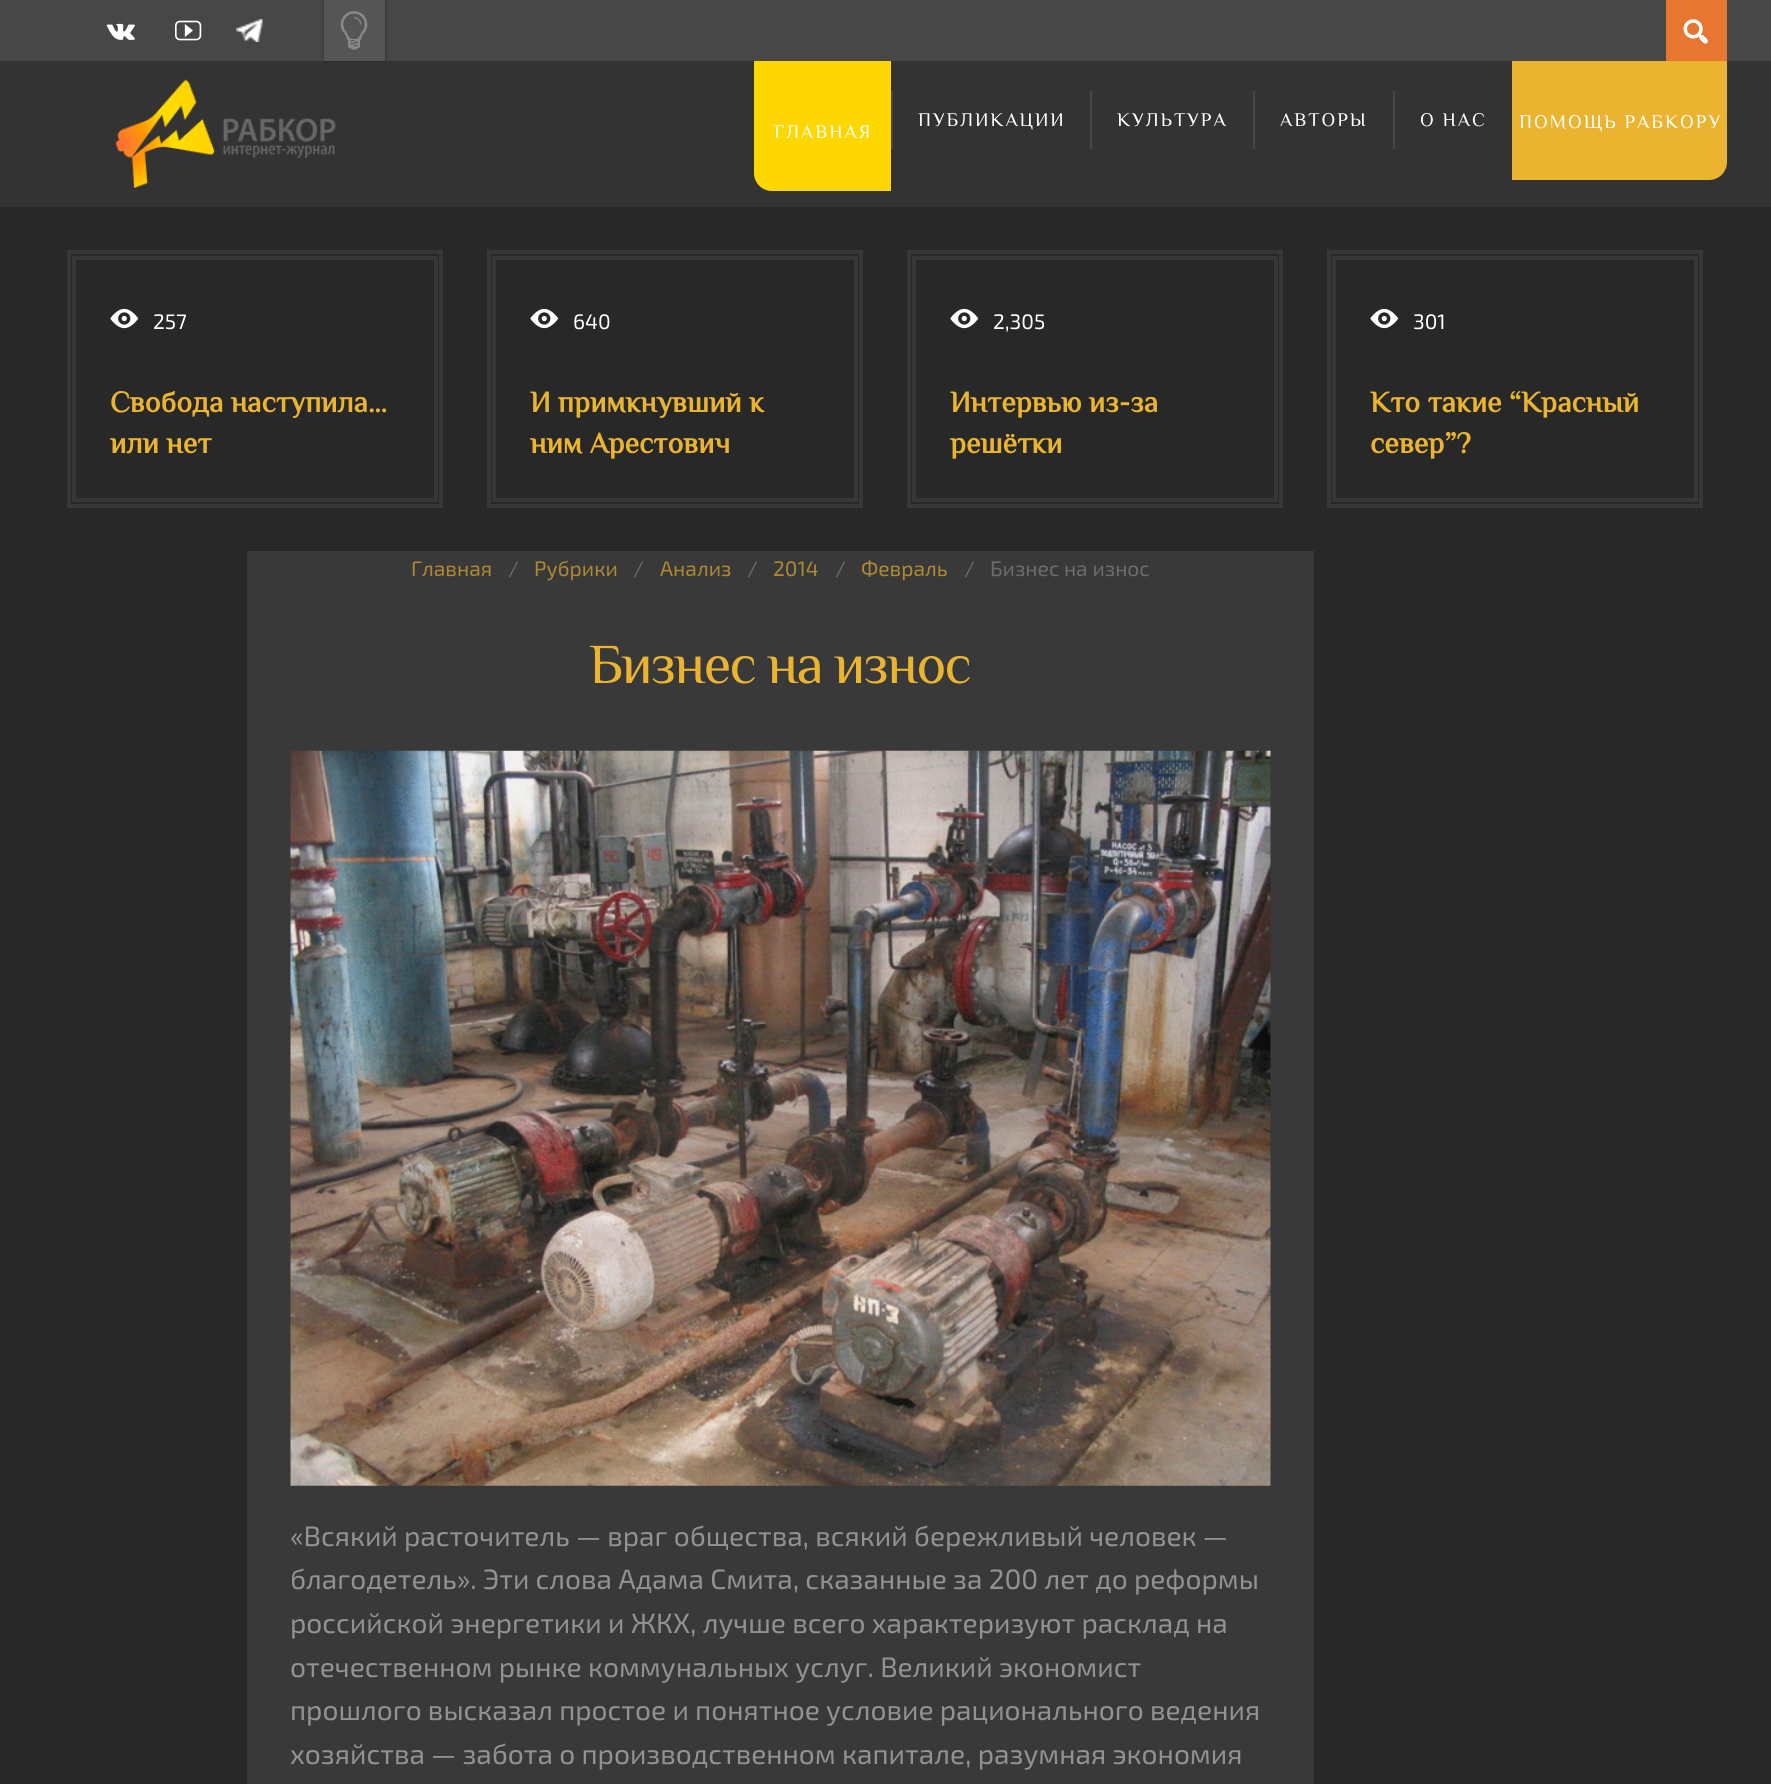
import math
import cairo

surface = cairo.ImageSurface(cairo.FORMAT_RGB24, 1771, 1784)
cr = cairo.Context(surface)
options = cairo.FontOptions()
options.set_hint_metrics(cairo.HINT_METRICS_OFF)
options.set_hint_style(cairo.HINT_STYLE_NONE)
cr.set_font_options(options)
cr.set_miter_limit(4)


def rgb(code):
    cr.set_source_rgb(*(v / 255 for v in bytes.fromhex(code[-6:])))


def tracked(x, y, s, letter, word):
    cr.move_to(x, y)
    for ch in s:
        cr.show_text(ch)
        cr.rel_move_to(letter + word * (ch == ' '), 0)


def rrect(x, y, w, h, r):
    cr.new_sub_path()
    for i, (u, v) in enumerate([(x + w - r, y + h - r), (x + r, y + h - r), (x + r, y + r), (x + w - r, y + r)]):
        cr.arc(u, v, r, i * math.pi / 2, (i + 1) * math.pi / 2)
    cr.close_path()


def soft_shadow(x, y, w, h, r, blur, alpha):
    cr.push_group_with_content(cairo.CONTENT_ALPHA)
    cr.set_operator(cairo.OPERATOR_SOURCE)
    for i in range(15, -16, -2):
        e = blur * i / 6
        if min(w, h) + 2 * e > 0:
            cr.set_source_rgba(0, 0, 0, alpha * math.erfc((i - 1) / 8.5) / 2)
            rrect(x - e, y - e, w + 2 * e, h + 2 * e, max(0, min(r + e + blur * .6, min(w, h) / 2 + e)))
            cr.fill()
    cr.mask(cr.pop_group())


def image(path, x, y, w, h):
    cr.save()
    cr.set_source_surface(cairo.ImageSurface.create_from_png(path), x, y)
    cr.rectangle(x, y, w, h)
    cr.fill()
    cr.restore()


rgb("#282828")
cr.paint()
rgb("#474747")
cr.rectangle(0, 0, 1771, 61)
cr.fill()
image("img/1.png", 106, 23, 29, 17)
image("img/2.png", 175, 20, 27, 21)
image("img/3.png", 236, 19, 27, 23)
rgb("#333333")
cr.rectangle(0, 61, 1771, 146)
cr.fill()
rgb("#000000")
soft_shadow(324, 0, 61, 61, 0, 2, 0.3)
rgb("#555555")
cr.rectangle(324, 0, 61, 61)
cr.fill()
image("img/4.png", 340, 11, 28, 39)
rgb("#e77730")
cr.rectangle(1666, 0, 61, 61)
cr.fill()
image("img/5.png", 1683, 19, 25, 25)
image("img/6.png", 115, 79, 221, 109)
rgb("#ffd700")
cr.new_path()
cr.move_to(754, 61)
cr.line_to(891, 61)
cr.line_to(891, 191)
cr.line_to(772, 191)
cr.curve_to(762, 191, 754, 183, 754, 173)
cr.close_path()
cr.fill()
for x, y, w, h, color in [
    (891, 91, 2, 58, "#474747"),
    (1090, 91, 2, 58, "#474747"),
    (1253, 91, 2, 58, "#474747"),
    (1393, 91, 2, 58, "#474747"),
]:
    rgb(color)
    cr.rectangle(x, y, w, h)
    cr.fill()
rgb("#ebb430")
cr.new_path()
cr.move_to(1512, 61)
cr.line_to(1727, 61)
cr.line_to(1727, 162)
cr.curve_to(1727, 172, 1719, 180, 1709, 180)
cr.line_to(1512, 180)
cr.close_path()
cr.fill()
cr.rectangle(69, 252, 372, 254)
rgb("#373737")
cr.set_line_width(4)
cr.stroke()
cr.rectangle(74, 258, 362, 242)
cr.stroke()
image("img/7.png", 110, 308, 29, 21)
cr.rectangle(489, 252, 372, 254)
cr.stroke()
cr.rectangle(494, 258, 362, 242)
cr.stroke()
image("img/7.png", 530, 308, 29, 21)
cr.rectangle(909, 252, 372, 254)
cr.stroke()
cr.rectangle(914, 258, 362, 242)
cr.stroke()
image("img/7.png", 950, 308, 29, 21)
cr.rectangle(1329, 252, 372, 254)
cr.stroke()
cr.rectangle(1334, 258, 362, 242)
cr.stroke()
image("img/7.png", 1370, 308, 29, 21)
rgb("#393939")
cr.rectangle(247, 551, 1067, 1233)
cr.fill()
image("img/8.png", 290, 750, 981, 736)
cr.select_font_face("Philosopher")
cr.set_font_size(19.25)
rgb("#ffffff")
for x, y, s in [
    (774, 138, "ГЛАВНАЯ"),
    (918, 126, "ПУБЛИКАЦИИ"),
    (1117, 126, "КУЛЬТУРА"),
    (1280, 126, "АВТОРЫ"),
    (1420, 126, "О НАС"),
    (1519, 128, "ПОМОЩЬ РАБКОРУ"),
]:
    tracked(x, y, s, 2, 0)
cr.select_font_face("Exo 2")
cr.set_font_size(21)
cr.move_to(153, 329)
cr.show_text("257")
cr.select_font_face("Philosopher", cairo.FONT_SLANT_NORMAL, cairo.FONT_WEIGHT_BOLD)
cr.set_font_size(29.75)
rgb("#ebb430")
cr.move_to(110, 412)
cr.show_text("Свобода наступила…")
cr.move_to(110, 453)
cr.show_text("или нет")
cr.select_font_face("Exo 2")
cr.set_font_size(21)
rgb("#ffffff")
cr.move_to(573, 329)
cr.show_text("640")
cr.select_font_face("Philosopher", cairo.FONT_SLANT_NORMAL, cairo.FONT_WEIGHT_BOLD)
cr.set_font_size(29.75)
rgb("#ebb430")
cr.move_to(530, 412)
cr.show_text("И примкнувший к")
cr.move_to(530, 453)
cr.show_text("ним Арестович")
cr.select_font_face("Exo 2")
cr.set_font_size(21)
rgb("#ffffff")
cr.move_to(993, 329)
cr.show_text("2,305")
cr.select_font_face("Philosopher", cairo.FONT_SLANT_NORMAL, cairo.FONT_WEIGHT_BOLD)
cr.set_font_size(29.75)
rgb("#ebb430")
cr.move_to(950, 412)
cr.show_text("Интервью из-за")
cr.move_to(950, 453)
cr.show_text("решётки")
cr.select_font_face("Exo 2")
cr.set_font_size(21)
rgb("#ffffff")
cr.move_to(1413, 329)
cr.show_text("301")
cr.select_font_face("Philosopher", cairo.FONT_SLANT_NORMAL, cairo.FONT_WEIGHT_BOLD)
cr.set_font_size(29.75)
rgb("#ebb430")
cr.move_to(1370, 412)
cr.show_text("Кто такие “Красный")
cr.move_to(1370, 453)
cr.show_text("север”?")
cr.select_font_face("Exo 2")
cr.set_font_size(21)
rgb("#ad8933")
cr.move_to(411, 576)
cr.show_text("Главная")
rgb("#6c6c6c")
cr.move_to(508, 576)
cr.show_text("/")
rgb("#ad8933")
cr.move_to(534, 576)
cr.show_text("Рубрики")
rgb("#6c6c6c")
cr.move_to(633, 576)
cr.show_text("/")
rgb("#ad8933")
cr.move_to(660, 576)
cr.show_text("Анализ")
rgb("#6c6c6c")
cr.move_to(747, 576)
cr.show_text("/")
rgb("#ad8933")
cr.move_to(773, 576)
cr.show_text("2014")
rgb("#6c6c6c")
cr.move_to(835, 576)
cr.show_text("/")
rgb("#ad8933")
cr.move_to(861, 576)
cr.show_text("Февраль")
rgb("#6c6c6c")
cr.move_to(964, 576)
cr.show_text("/")
cr.move_to(990, 576)
cr.show_text("Бизнес на износ")
cr.select_font_face("Philosopher")
cr.set_font_size(56.25)
rgb("#ebb430")
tracked(589, 683, "Бизнес на износ", -1.75, 0)
cr.select_font_face("Exo 2")
cr.set_font_size(28)
rgb("#929292")
for x, y, s in [
    (290, 1546, "«Всякий расточитель — враг общества, всякий бережливый человек —"),
    (290, 1589, "благодетель». Эти слова Адама Смита, сказанные за 200 лет до реформы"),
    (290, 1633, "российской энергетики и ЖКХ, лучше всего характеризуют расклад на"),
    (290, 1677, "отечественном рынке коммунальных услуг. Великий экономист"),
    (290, 1720, "прошлого высказал простое и понятное условие рационального ведения"),
    (290, 1764, "хозяйства — забота о производственном капитале, разумная экономия"),
]:
    cr.move_to(x, y)
    cr.show_text(s)
surface.write_to_png("page.png")
